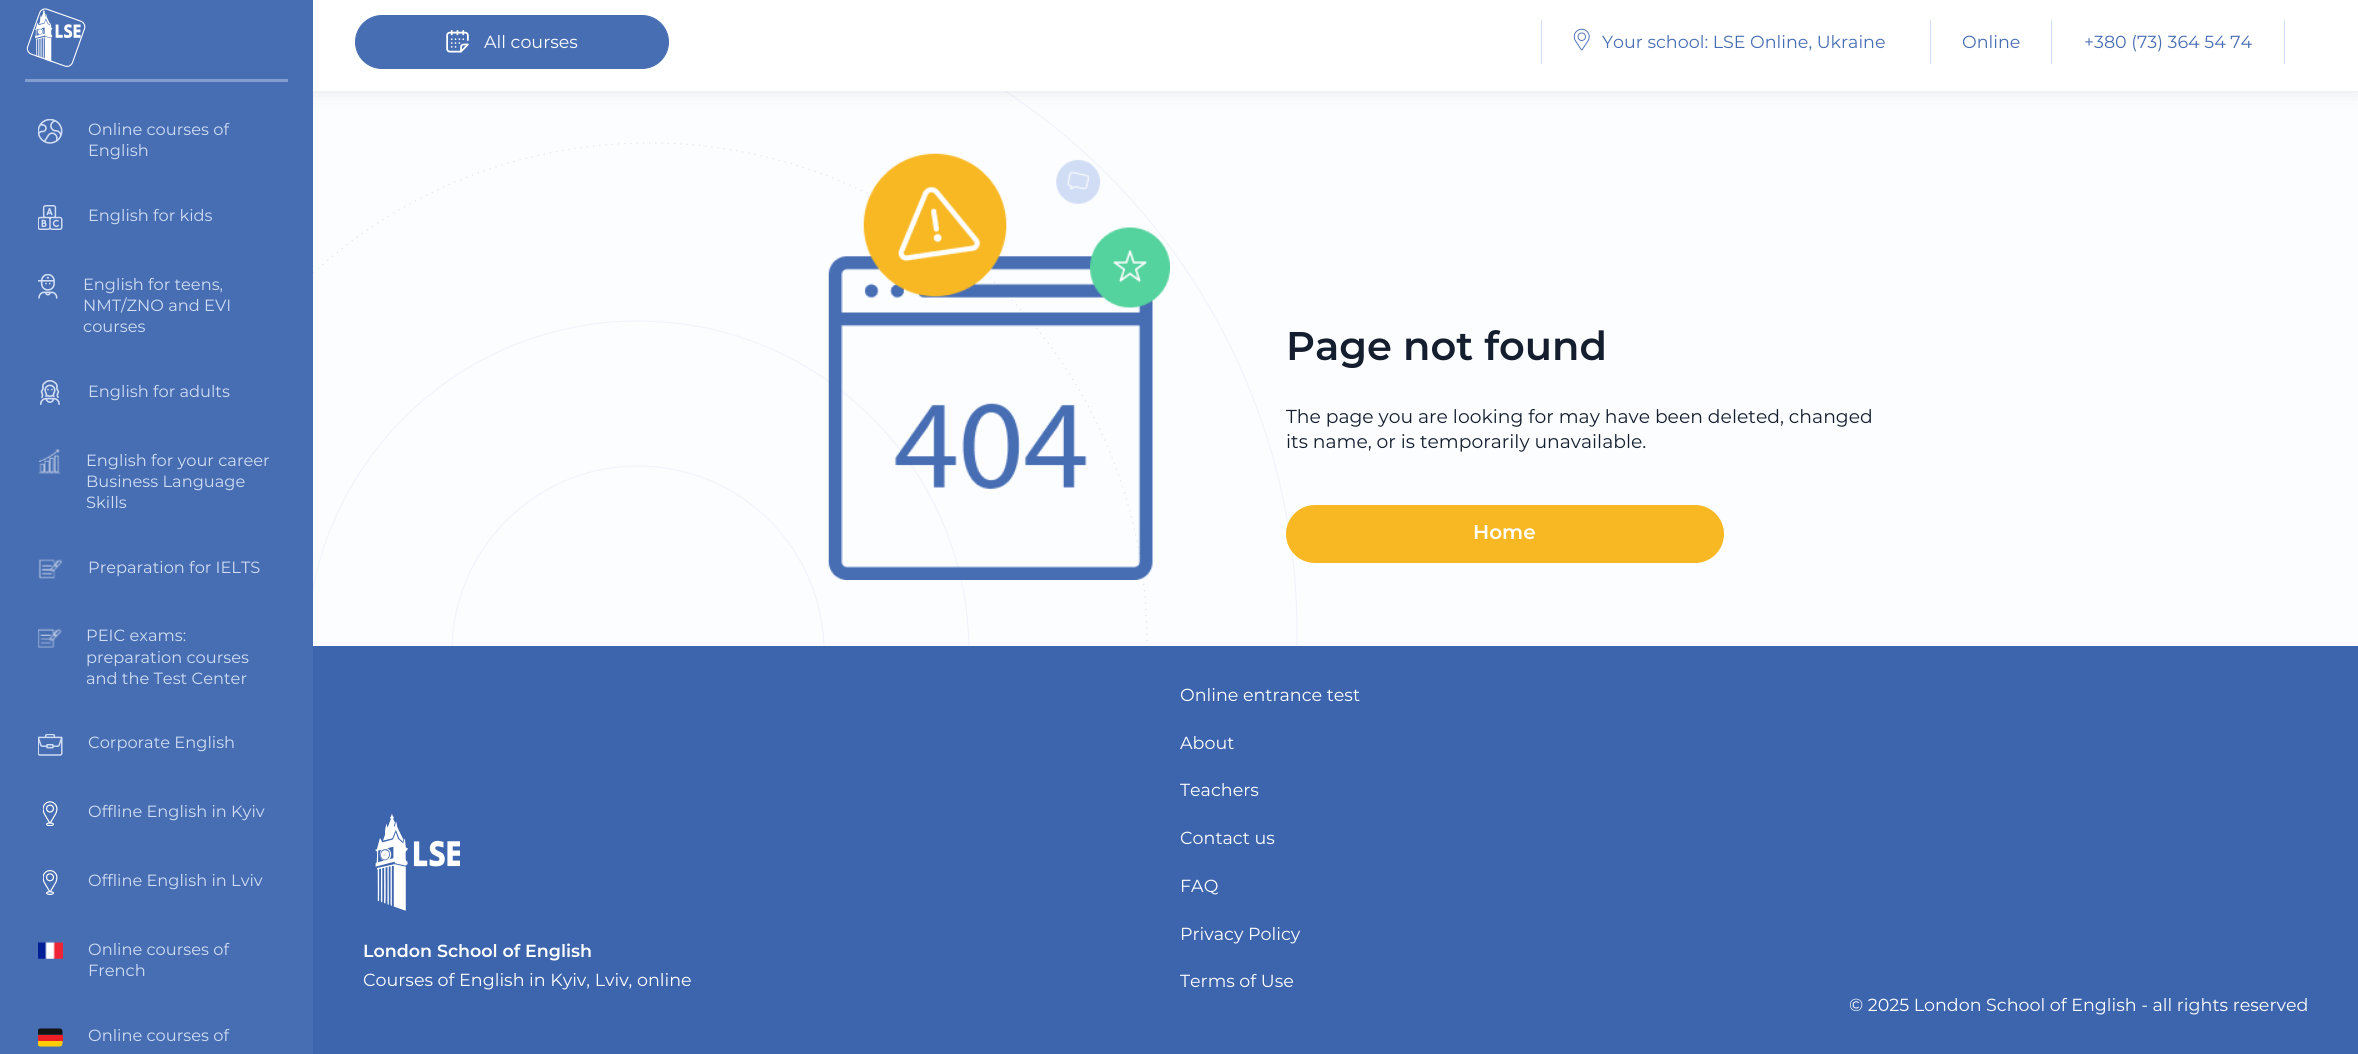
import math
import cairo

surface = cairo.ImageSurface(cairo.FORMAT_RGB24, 2358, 1054)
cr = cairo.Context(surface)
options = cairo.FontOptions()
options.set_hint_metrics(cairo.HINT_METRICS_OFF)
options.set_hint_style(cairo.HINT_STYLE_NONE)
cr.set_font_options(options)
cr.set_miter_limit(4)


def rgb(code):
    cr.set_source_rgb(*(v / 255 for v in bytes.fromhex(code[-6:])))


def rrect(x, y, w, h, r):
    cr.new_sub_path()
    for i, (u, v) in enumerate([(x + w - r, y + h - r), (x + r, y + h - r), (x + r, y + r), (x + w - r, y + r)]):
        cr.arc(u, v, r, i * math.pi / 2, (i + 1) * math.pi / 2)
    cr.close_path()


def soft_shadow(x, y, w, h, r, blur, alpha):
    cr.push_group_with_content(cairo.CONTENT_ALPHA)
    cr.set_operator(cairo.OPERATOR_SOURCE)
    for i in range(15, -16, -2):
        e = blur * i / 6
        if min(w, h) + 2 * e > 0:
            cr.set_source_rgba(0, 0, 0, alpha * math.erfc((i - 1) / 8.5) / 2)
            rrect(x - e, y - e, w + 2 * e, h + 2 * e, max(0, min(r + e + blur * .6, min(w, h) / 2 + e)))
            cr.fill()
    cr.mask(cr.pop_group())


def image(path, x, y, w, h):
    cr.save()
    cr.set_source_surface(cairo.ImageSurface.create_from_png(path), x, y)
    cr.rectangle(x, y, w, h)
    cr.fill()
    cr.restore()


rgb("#fcfdff")
cr.paint()
cr.arc(649, 632.5, 648, 0, 2 * math.pi)
rgb("#f0f4fb")
cr.set_line_width(1.2)
cr.stroke()
rgb("#000000")
soft_shadow(0, -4, 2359, 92, 0, 11, 0.12)
rgb("#ffffff")
cr.rectangle(313, 0, 2045, 91)
cr.fill()
rgb("#476eb3")
rrect(355.5, 15.5, 313, 53, 26.5)
cr.fill_preserve()
cr.set_line_width(1)
cr.stroke()
image("img/1.png", 446, 30, 23, 23)
rgb("#d0ddf4")
cr.rectangle(1541, 20, 1, 44)
cr.fill()
image("img/2.png", 1573, 28, 17, 23)
for x, y, w, h, color in [
    (1930, 20, 1, 44, "#d0ddf4"),
    (2051, 20, 1, 44, "#d0ddf4"),
    (2284, 20, 1, 44, "#d0ddf4"),
]:
    rgb(color)
    cr.rectangle(x, y, w, h)
    cr.fill()
cr.new_path()
cr.move_to(649, 143)
cr.curve_to(924, 143, 1147, 366, 1147, 641)
cr.curve_to(1147, 916.5, 924, 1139.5, 649, 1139.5)
cr.curve_to(373.5, 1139.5, 150.5, 916.5, 150.5, 641)
cr.curve_to(150.5, 366, 373.5, 143, 649, 143)
cr.close_path()
rgb("#dfe6f3")
cr.set_line_width(1.2)
cr.set_line_join(cairo.LINE_JOIN_ROUND)
cr.set_dash([1.25, 5])
cr.stroke()
cr.arc(638, 652, 331, 0, 2 * math.pi)
rgb("#f0f4fb")
cr.set_line_join(cairo.LINE_JOIN_MITER)
cr.set_dash([])
cr.stroke()
rgb("#476eb3")
cr.rectangle(0, 0, 313, 1054)
cr.fill()
image("img/3.png", 26, 8, 60, 59)
rgb("#819dcf")
cr.rectangle(25, 79, 263, 3)
cr.fill()
image("img/4.png", 38, 119, 25, 25)
image("img/5.png", 38, 205, 25, 25)
image("img/6.png", 38, 274, 20, 25)
image("img/7.png", 40, 380, 20, 25)
image("img/8.png", 38, 449, 23, 25)
image("img/9.png", 38, 559, 25, 20)
image("img/10.png", 38, 628, 24, 20)
image("img/11.png", 38, 734, 25, 22)
image("img/12.png", 43, 801, 15, 25)
image("img/13.png", 43, 870, 15, 25)
image("img/14.png", 38, 941, 25, 18)
image("img/15.png", 38, 1028, 25, 19)
cr.arc(638, 652, 186, 0, 2 * math.pi)
rgb("#f0f4fb")
cr.stroke()
image("img/16.png", 828, 153, 342, 427)
rgb("#f8b823")
rrect(1286, 505, 438, 58, 29)
cr.fill()
rgb("#3d65ad")
cr.rectangle(313, 646, 2045, 408)
cr.fill()
image("img/17.png", 375, 814, 85, 97)
cr.select_font_face("Montserrat")
cr.set_font_size(17.5)
rgb("#ffffff")
cr.move_to(484, 48)
cr.show_text("All courses")
rgb("#476eb3")
for x, y, s in [
    (1602, 48, "Your school: LSE Online, Ukraine"),
    (1962, 48, "Online"),
    (2084, 48, "+380 (73) 364 54 74"),
]:
    cr.move_to(x, y)
    cr.show_text(s)
cr.set_font_size(16.25)
rgb("#d0ddf4")
for x, y, s in [
    (88, 135, "Online courses of"),
    (88, 156, "English"),
    (88, 221, "English for kids"),
    (83, 290, "English for teens,"),
    (83, 311, "NMT/ZNO and EVI"),
    (83, 332, "courses"),
    (88, 397, "English for adults"),
    (86, 466, "English for your career"),
    (86, 487, "Business Language"),
    (86, 508, "Skills"),
    (88, 573, "Preparation for IELTS"),
    (86, 641, "PEIC exams:"),
    (86, 663, "preparation courses"),
    (86, 684, "and the Test Center"),
    (88, 748, "Corporate English"),
    (88, 817, "Offline English in Kyiv"),
    (88, 886, "Offline English in Lviv"),
    (88, 955, "Online courses of"),
    (88, 976, "French"),
    (88, 1041, "Online courses of"),
]:
    cr.move_to(x, y)
    cr.show_text(s)
cr.select_font_face("Montserrat SemiBold")
cr.set_font_size(40)
rgb("#141e2f")
cr.move_to(1286, 360)
cr.show_text("Page not found")
cr.select_font_face("Montserrat")
cr.set_font_size(18.75)
cr.move_to(1286, 423)
cr.show_text("The page you are looking for may have been deleted, changed")
cr.move_to(1286, 448)
cr.show_text("its name, or is temporarily unavailable.")
cr.select_font_face("Montserrat SemiBold")
cr.set_font_size(20)
rgb("#ffffff")
cr.move_to(1473, 539)
cr.show_text("Home")
cr.set_font_size(17.5)
cr.move_to(363, 957)
cr.show_text("London School of English")
cr.select_font_face("Montserrat")
for x, y, s in [
    (363, 986, "Courses of English in Kyiv, Lviv, online"),
    (1180, 701, "Online entrance test"),
    (1180, 749, "About"),
    (1180, 796, "Teachers"),
    (1180, 844, "Contact us"),
    (1180, 892, "FAQ"),
    (1180, 940, "Privacy Policy"),
    (1180, 987, "Terms of Use"),
    (1849, 1011, "© 2025 London School of English - all rights reserved"),
]:
    cr.move_to(x, y)
    cr.show_text(s)
surface.write_to_png("page.png")
